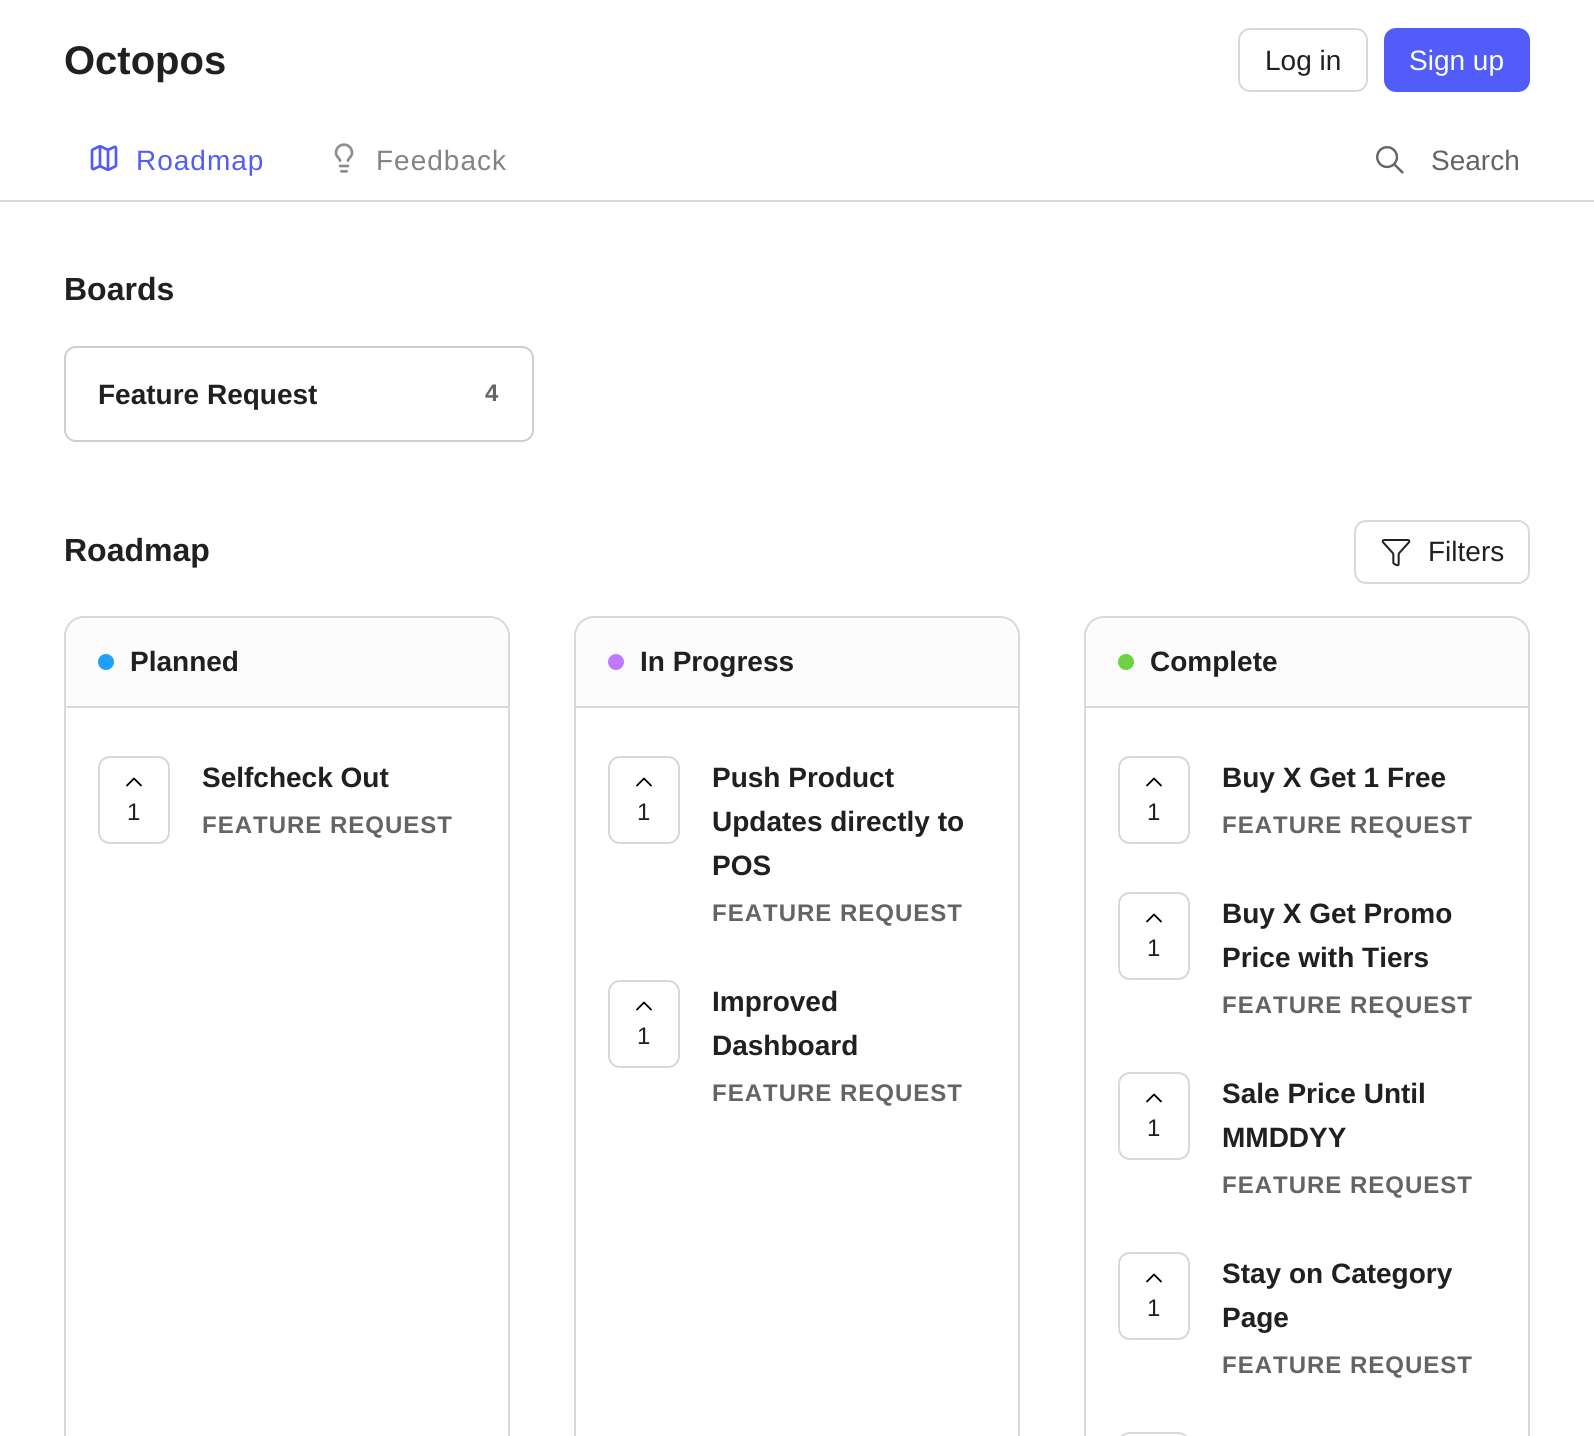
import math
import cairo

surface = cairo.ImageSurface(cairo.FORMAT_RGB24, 1594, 1436)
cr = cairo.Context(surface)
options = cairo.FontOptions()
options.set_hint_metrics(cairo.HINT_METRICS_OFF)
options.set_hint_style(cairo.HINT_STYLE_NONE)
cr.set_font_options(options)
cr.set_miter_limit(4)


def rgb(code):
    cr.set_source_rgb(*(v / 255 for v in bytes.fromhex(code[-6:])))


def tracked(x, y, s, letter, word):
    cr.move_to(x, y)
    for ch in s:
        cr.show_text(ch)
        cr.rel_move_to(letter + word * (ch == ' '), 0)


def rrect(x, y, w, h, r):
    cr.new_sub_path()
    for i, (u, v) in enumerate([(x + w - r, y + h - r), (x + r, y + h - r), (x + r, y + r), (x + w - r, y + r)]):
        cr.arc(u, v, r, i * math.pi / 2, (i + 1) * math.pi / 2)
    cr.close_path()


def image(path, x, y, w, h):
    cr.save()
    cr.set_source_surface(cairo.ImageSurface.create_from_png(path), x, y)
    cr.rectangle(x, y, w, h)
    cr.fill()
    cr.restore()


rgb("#ffffff")
cr.paint()
rgb("#d9d9d9")
cr.rectangle(0, 200, 1594, 2)
cr.fill()
rrect(1239, 29, 128, 62, 11)
cr.stroke()
rgb("#525df9")
rrect(1385, 29, 144, 62, 11)
cr.fill_preserve()
cr.stroke()
image("img/1.png", 90, 145, 28, 26)
image("img/2.png", 334, 143, 20, 30)
image("img/3.png", 1376, 146, 28, 28)
rrect(65, 347, 468, 94, 11)
rgb("#cecece")
cr.stroke()
rrect(1355, 521, 174, 62, 11)
rgb("#d9d9d9")
cr.stroke()
image("img/4.png", 1381, 539, 30, 28)
rrect(65, 617, 444, 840, 19)
cr.stroke()
cr.save()
rrect(66, 618, 442, 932, 18)
cr.clip()
rgb("#fcfcfc")
cr.new_path()
cr.move_to(86, 618)
cr.line_to(488, 618)
cr.curve_to(499, 618, 508, 627, 508, 638)
cr.line_to(508, 708)
cr.line_to(66, 708)
cr.line_to(66, 638)
cr.curve_to(66, 627, 75, 618, 86, 618)
cr.close_path()
cr.fill()
cr.restore()
cr.rectangle(66, 706, 442, 2)
cr.fill()
rgb("#1fa0ff")
cr.arc(106, 662, 8, 0, 2 * math.pi)
cr.fill()
rgb("#d9d9d9")
cr.new_path()
cr.move_to(110, 756)
cr.line_to(158, 756)
cr.curve_to(165, 756, 170, 761, 170, 768)
cr.line_to(170, 832)
cr.curve_to(170, 839, 165, 844, 158, 844)
cr.line_to(110, 844)
cr.curve_to(103, 844, 98, 839, 98, 832)
cr.line_to(98, 768)
cr.curve_to(98, 761, 103, 756, 110, 756)
cr.close_path()
cr.fill()
rgb("#ffffff")
rrect(100, 758, 68, 84, 10)
cr.fill()
cr.new_path()
cr.move_to(141, 785.5)
cr.line_to(134, 778.5)
cr.line_to(127, 785.5)
rgb("#000000")
cr.set_line_width(1.8)
cr.set_line_cap(cairo.LINE_CAP_ROUND)
cr.set_line_join(cairo.LINE_JOIN_ROUND)
cr.stroke()
rrect(575, 617, 444, 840, 19)
rgb("#d9d9d9")
cr.set_line_width(2)
cr.set_line_cap(cairo.LINE_CAP_BUTT)
cr.set_line_join(cairo.LINE_JOIN_MITER)
cr.stroke()
cr.save()
rrect(576, 618, 442, 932, 18)
cr.clip()
rgb("#fcfcfc")
cr.new_path()
cr.move_to(596, 618)
cr.line_to(998, 618)
cr.curve_to(1009, 618, 1018, 627, 1018, 638)
cr.line_to(1018, 708)
cr.line_to(576, 708)
cr.line_to(576, 638)
cr.curve_to(576, 627, 585, 618, 596, 618)
cr.close_path()
cr.fill()
cr.restore()
cr.rectangle(576, 706, 442, 2)
cr.fill()
rgb("#c17aff")
cr.arc(616, 662, 8, 0, 2 * math.pi)
cr.fill()
rgb("#d9d9d9")
cr.new_path()
cr.move_to(620, 756)
cr.line_to(668, 756)
cr.curve_to(675, 756, 680, 761, 680, 768)
cr.line_to(680, 832)
cr.curve_to(680, 839, 675, 844, 668, 844)
cr.line_to(620, 844)
cr.curve_to(613, 844, 608, 839, 608, 832)
cr.line_to(608, 768)
cr.curve_to(608, 761, 613, 756, 620, 756)
cr.close_path()
cr.fill()
rgb("#ffffff")
rrect(610, 758, 68, 84, 10)
cr.fill()
cr.new_path()
cr.move_to(651, 785.5)
cr.line_to(644, 778.5)
cr.line_to(637, 785.5)
rgb("#000000")
cr.set_line_width(1.8)
cr.set_line_cap(cairo.LINE_CAP_ROUND)
cr.set_line_join(cairo.LINE_JOIN_ROUND)
cr.stroke()
rgb("#d9d9d9")
cr.new_path()
cr.move_to(620, 980)
cr.line_to(668, 980)
cr.curve_to(675, 980, 680, 985, 680, 992)
cr.line_to(680, 1056)
cr.curve_to(680, 1063, 675, 1068, 668, 1068)
cr.line_to(620, 1068)
cr.curve_to(613, 1068, 608, 1063, 608, 1056)
cr.line_to(608, 992)
cr.curve_to(608, 985, 613, 980, 620, 980)
cr.close_path()
cr.fill()
rgb("#ffffff")
rrect(610, 982, 68, 84, 10)
cr.fill()
cr.new_path()
cr.move_to(651, 1009.5)
cr.line_to(644, 1002.5)
cr.line_to(637, 1009.5)
rgb("#000000")
cr.stroke()
rrect(1085, 617, 444, 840, 19)
rgb("#d9d9d9")
cr.set_line_width(2)
cr.set_line_cap(cairo.LINE_CAP_BUTT)
cr.set_line_join(cairo.LINE_JOIN_MITER)
cr.stroke()
cr.save()
rrect(1086, 618, 442, 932, 18)
cr.clip()
rgb("#fcfcfc")
cr.new_path()
cr.move_to(1106, 618)
cr.line_to(1508, 618)
cr.curve_to(1519, 618, 1528, 627, 1528, 638)
cr.line_to(1528, 708)
cr.line_to(1086, 708)
cr.line_to(1086, 638)
cr.curve_to(1086, 627, 1095, 618, 1106, 618)
cr.close_path()
cr.fill()
cr.restore()
cr.rectangle(1086, 706, 442, 2)
cr.fill()
rgb("#6cd345")
cr.arc(1126, 662, 8, 0, 2 * math.pi)
cr.fill()
rgb("#d9d9d9")
cr.new_path()
cr.move_to(1130, 756)
cr.line_to(1178, 756)
cr.curve_to(1185, 756, 1190, 761, 1190, 768)
cr.line_to(1190, 832)
cr.curve_to(1190, 839, 1185, 844, 1178, 844)
cr.line_to(1130, 844)
cr.curve_to(1123, 844, 1118, 839, 1118, 832)
cr.line_to(1118, 768)
cr.curve_to(1118, 761, 1123, 756, 1130, 756)
cr.close_path()
cr.fill()
rgb("#ffffff")
rrect(1120, 758, 68, 84, 10)
cr.fill()
cr.new_path()
cr.move_to(1161, 785.5)
cr.line_to(1154, 778.5)
cr.line_to(1147, 785.5)
rgb("#000000")
cr.set_line_width(1.8)
cr.set_line_cap(cairo.LINE_CAP_ROUND)
cr.set_line_join(cairo.LINE_JOIN_ROUND)
cr.stroke()
rgb("#d9d9d9")
cr.new_path()
cr.move_to(1130, 892)
cr.line_to(1178, 892)
cr.curve_to(1185, 892, 1190, 897, 1190, 904)
cr.line_to(1190, 968)
cr.curve_to(1190, 975, 1185, 980, 1178, 980)
cr.line_to(1130, 980)
cr.curve_to(1123, 980, 1118, 975, 1118, 968)
cr.line_to(1118, 904)
cr.curve_to(1118, 897, 1123, 892, 1130, 892)
cr.close_path()
cr.fill()
rgb("#ffffff")
rrect(1120, 894, 68, 84, 10)
cr.fill()
cr.new_path()
cr.move_to(1161, 921.5)
cr.line_to(1154, 914.5)
cr.line_to(1147, 921.5)
rgb("#000000")
cr.stroke()
rgb("#d9d9d9")
cr.new_path()
cr.move_to(1130, 1072)
cr.line_to(1178, 1072)
cr.curve_to(1185, 1072, 1190, 1077, 1190, 1084)
cr.line_to(1190, 1148)
cr.curve_to(1190, 1155, 1185, 1160, 1178, 1160)
cr.line_to(1130, 1160)
cr.curve_to(1123, 1160, 1118, 1155, 1118, 1148)
cr.line_to(1118, 1084)
cr.curve_to(1118, 1077, 1123, 1072, 1130, 1072)
cr.close_path()
cr.fill()
rgb("#ffffff")
rrect(1120, 1074, 68, 84, 10)
cr.fill()
cr.new_path()
cr.move_to(1161, 1101.5)
cr.line_to(1154, 1094.5)
cr.line_to(1147, 1101.5)
rgb("#000000")
cr.stroke()
rgb("#d9d9d9")
cr.new_path()
cr.move_to(1130, 1252)
cr.line_to(1178, 1252)
cr.curve_to(1185, 1252, 1190, 1257, 1190, 1264)
cr.line_to(1190, 1328)
cr.curve_to(1190, 1335, 1185, 1340, 1178, 1340)
cr.line_to(1130, 1340)
cr.curve_to(1123, 1340, 1118, 1335, 1118, 1328)
cr.line_to(1118, 1264)
cr.curve_to(1118, 1257, 1123, 1252, 1130, 1252)
cr.close_path()
cr.fill()
rgb("#ffffff")
rrect(1120, 1254, 68, 84, 10)
cr.fill()
cr.new_path()
cr.move_to(1161, 1281.5)
cr.line_to(1154, 1274.5)
cr.line_to(1147, 1281.5)
rgb("#000000")
cr.stroke()
rgb("#d9d9d9")
cr.new_path()
cr.move_to(1130, 1432)
cr.line_to(1178, 1432)
cr.curve_to(1185, 1432, 1190, 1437, 1190, 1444)
cr.line_to(1190, 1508)
cr.curve_to(1190, 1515, 1185, 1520, 1178, 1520)
cr.line_to(1130, 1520)
cr.curve_to(1123, 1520, 1118, 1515, 1118, 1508)
cr.line_to(1118, 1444)
cr.curve_to(1118, 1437, 1123, 1432, 1130, 1432)
cr.close_path()
cr.fill()
rgb("#ffffff")
rrect(1120, 1434, 68, 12, 10)
cr.fill()
cr.select_font_face("Liberation Sans", cairo.FONT_SLANT_NORMAL, cairo.FONT_WEIGHT_BOLD)
cr.set_font_size(40)
rgb("#202020")
cr.move_to(64, 74)
cr.show_text("Octopos")
cr.select_font_face("Liberation Sans")
cr.set_font_size(28)
cr.move_to(1265, 70)
cr.show_text("Log in")
rgb("#ffffff")
cr.move_to(1409, 70)
cr.show_text("Sign up")
rgb("#525df9")
tracked(136, 170, "Roadmap", 1, 0)
rgb("#838383")
tracked(376, 170, "Feedback", 1, 0)
rgb("#646464")
cr.move_to(1431, 170)
cr.show_text("Search")
cr.select_font_face("Liberation Sans", cairo.FONT_SLANT_NORMAL, cairo.FONT_WEIGHT_BOLD)
cr.set_font_size(32)
rgb("#202020")
cr.move_to(64, 300)
cr.show_text("Boards")
cr.set_font_size(28)
cr.move_to(98, 404)
cr.show_text("Feature Request")
cr.set_font_size(24)
rgb("#646464")
tracked(485, 401, "4", 1, 0)
cr.set_font_size(32)
rgb("#202020")
cr.move_to(64, 561)
cr.show_text("Roadmap")
cr.select_font_face("Liberation Sans")
cr.set_font_size(28)
cr.move_to(1428, 561)
cr.show_text("Filters")
cr.select_font_face("Liberation Sans", cairo.FONT_SLANT_NORMAL, cairo.FONT_WEIGHT_BOLD)
cr.move_to(130, 671)
cr.show_text("Planned")
cr.select_font_face("Liberation Sans")
cr.set_font_size(24)
cr.move_to(127, 820)
cr.show_text("1")
cr.select_font_face("Liberation Sans", cairo.FONT_SLANT_NORMAL, cairo.FONT_WEIGHT_BOLD)
cr.set_font_size(28)
cr.move_to(202, 787)
cr.show_text("Selfcheck Out")
cr.set_font_size(24)
rgb("#646464")
tracked(202, 833, "FEATURE REQUEST", 1, 0)
cr.set_font_size(28)
rgb("#202020")
cr.move_to(640, 671)
cr.show_text("In Progress")
cr.select_font_face("Liberation Sans")
cr.set_font_size(24)
cr.move_to(637, 820)
cr.show_text("1")
cr.select_font_face("Liberation Sans", cairo.FONT_SLANT_NORMAL, cairo.FONT_WEIGHT_BOLD)
cr.set_font_size(28)
for x, y, s in [
    (712, 787, "Push Product"),
    (712, 831, "Updates directly to"),
    (712, 875, "POS"),
]:
    cr.move_to(x, y)
    cr.show_text(s)
cr.set_font_size(24)
rgb("#646464")
tracked(712, 921, "FEATURE REQUEST", 1, 0)
cr.select_font_face("Liberation Sans")
rgb("#202020")
cr.move_to(637, 1044)
cr.show_text("1")
cr.select_font_face("Liberation Sans", cairo.FONT_SLANT_NORMAL, cairo.FONT_WEIGHT_BOLD)
cr.set_font_size(28)
cr.move_to(712, 1011)
cr.show_text("Improved")
cr.move_to(712, 1055)
cr.show_text("Dashboard")
cr.set_font_size(24)
rgb("#646464")
tracked(712, 1101, "FEATURE REQUEST", 1, 0)
cr.set_font_size(28)
rgb("#202020")
cr.move_to(1150, 671)
cr.show_text("Complete")
cr.select_font_face("Liberation Sans")
cr.set_font_size(24)
cr.move_to(1147, 820)
cr.show_text("1")
cr.select_font_face("Liberation Sans", cairo.FONT_SLANT_NORMAL, cairo.FONT_WEIGHT_BOLD)
cr.set_font_size(28)
cr.move_to(1222, 787)
cr.show_text("Buy X Get 1 Free")
cr.set_font_size(24)
rgb("#646464")
tracked(1222, 833, "FEATURE REQUEST", 1, 0)
cr.select_font_face("Liberation Sans")
rgb("#202020")
cr.move_to(1147, 956)
cr.show_text("1")
cr.select_font_face("Liberation Sans", cairo.FONT_SLANT_NORMAL, cairo.FONT_WEIGHT_BOLD)
cr.set_font_size(28)
cr.move_to(1222, 923)
cr.show_text("Buy X Get Promo")
cr.move_to(1222, 967)
cr.show_text("Price with Tiers")
cr.set_font_size(24)
rgb("#646464")
tracked(1222, 1013, "FEATURE REQUEST", 1, 0)
cr.select_font_face("Liberation Sans")
rgb("#202020")
cr.move_to(1147, 1136)
cr.show_text("1")
cr.select_font_face("Liberation Sans", cairo.FONT_SLANT_NORMAL, cairo.FONT_WEIGHT_BOLD)
cr.set_font_size(28)
cr.move_to(1222, 1103)
cr.show_text("Sale Price Until")
cr.move_to(1222, 1147)
cr.show_text("MMDDYY")
cr.set_font_size(24)
rgb("#646464")
tracked(1222, 1193, "FEATURE REQUEST", 1, 0)
cr.select_font_face("Liberation Sans")
rgb("#202020")
cr.move_to(1147, 1316)
cr.show_text("1")
cr.select_font_face("Liberation Sans", cairo.FONT_SLANT_NORMAL, cairo.FONT_WEIGHT_BOLD)
cr.set_font_size(28)
cr.move_to(1222, 1283)
cr.show_text("Stay on Category")
cr.move_to(1222, 1327)
cr.show_text("Page")
cr.set_font_size(24)
rgb("#646464")
tracked(1222, 1373, "FEATURE REQUEST", 1, 0)
surface.write_to_png("page.png")
